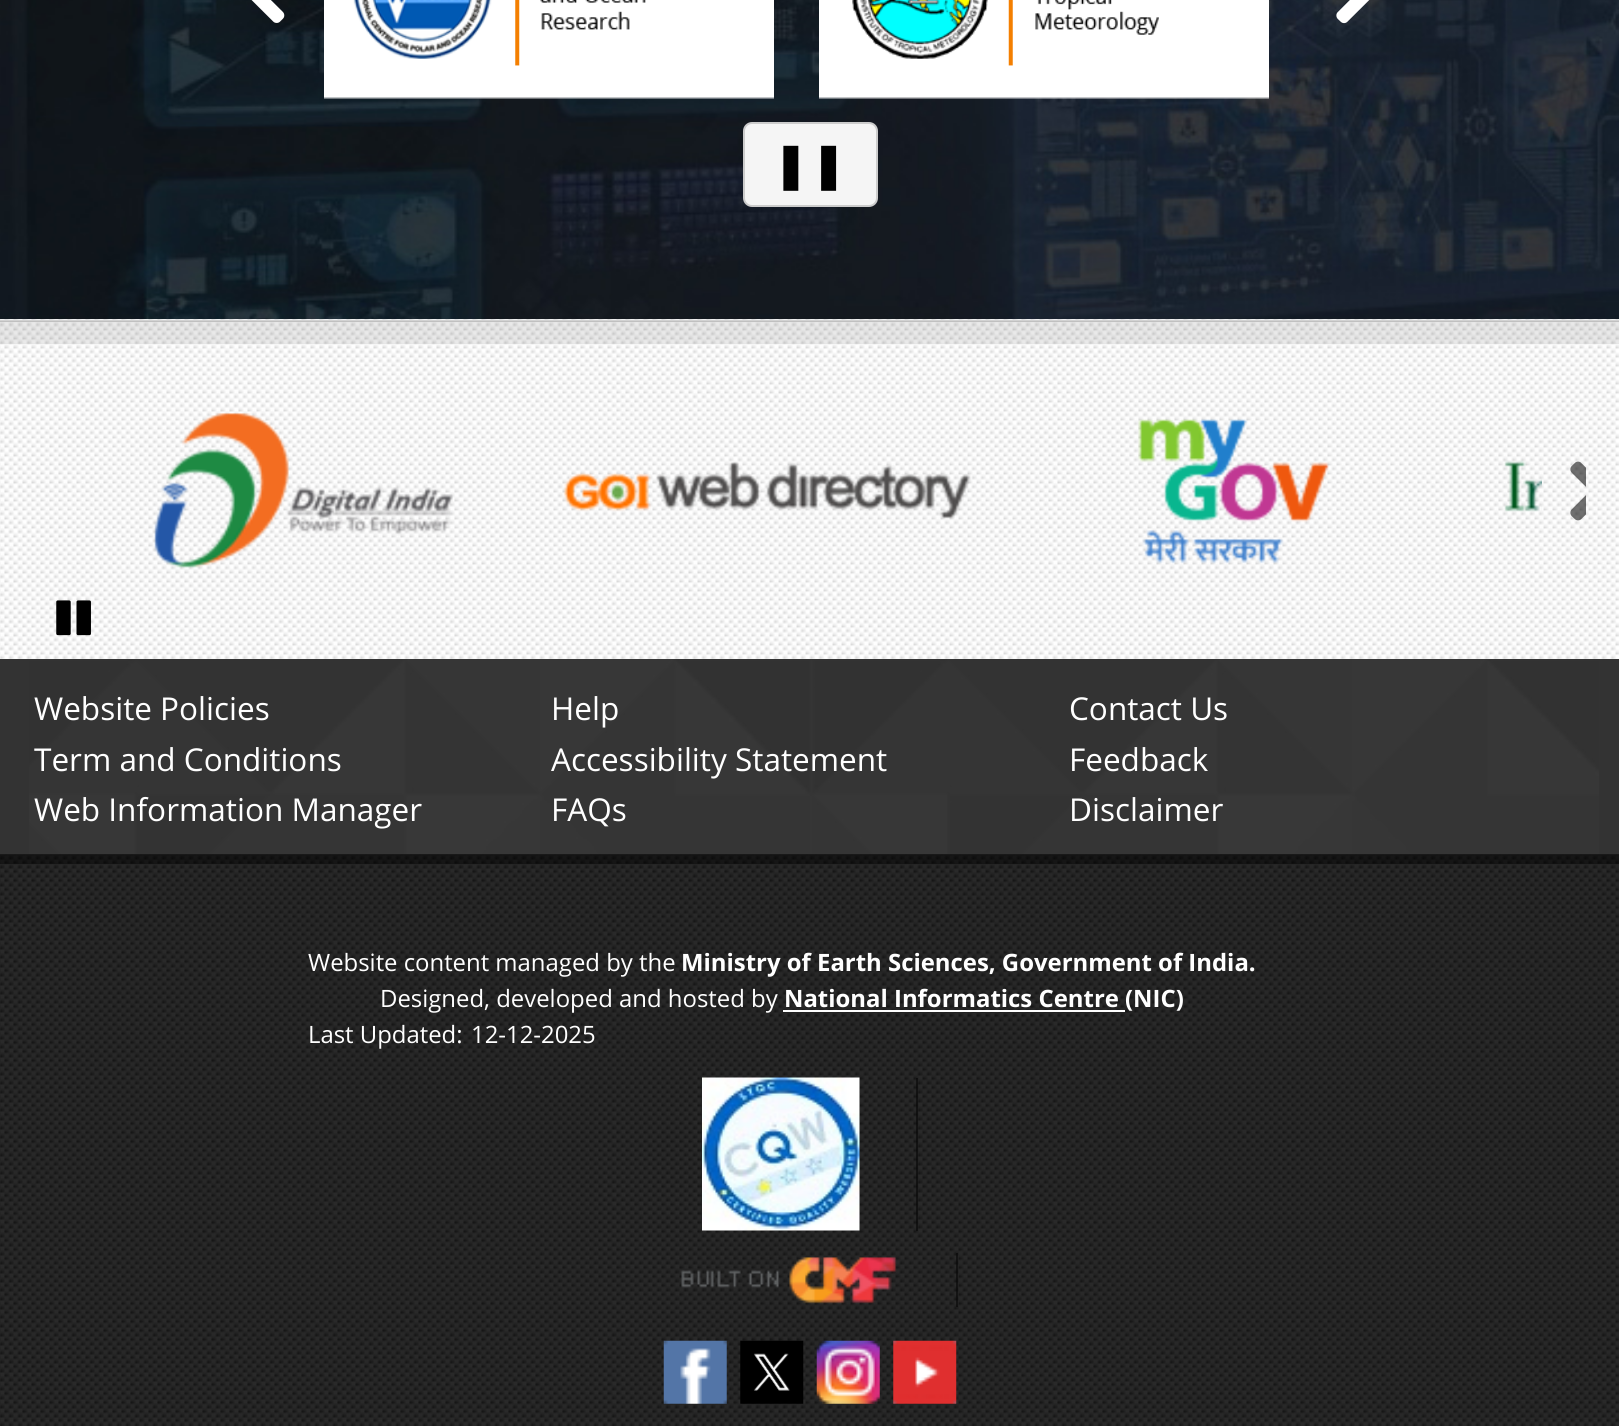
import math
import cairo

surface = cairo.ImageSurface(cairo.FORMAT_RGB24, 1619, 1426)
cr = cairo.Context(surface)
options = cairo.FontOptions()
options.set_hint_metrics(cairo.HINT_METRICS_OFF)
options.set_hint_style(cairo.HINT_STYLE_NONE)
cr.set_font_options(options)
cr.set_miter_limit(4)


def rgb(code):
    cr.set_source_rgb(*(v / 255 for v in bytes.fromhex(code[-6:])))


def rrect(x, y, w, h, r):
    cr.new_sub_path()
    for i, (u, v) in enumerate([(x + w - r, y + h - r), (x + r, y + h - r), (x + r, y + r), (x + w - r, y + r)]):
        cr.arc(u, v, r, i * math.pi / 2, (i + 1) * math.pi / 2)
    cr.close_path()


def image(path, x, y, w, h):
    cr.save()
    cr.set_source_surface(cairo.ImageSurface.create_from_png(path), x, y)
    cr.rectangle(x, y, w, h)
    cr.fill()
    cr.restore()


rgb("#ffffff")
cr.paint()
image("img/1.png", 0, 0, 1619, 320)
image("img/2.png", 251, 0, 34, 23)
image("img/3.png", 1336, 0, 34, 24)
image("img/4.png", 324, 0, 450, 99)
image("img/5.png", 819, 0, 450, 99)
rgb("#f5f5f5")
rrect(744, 123, 133, 83, 8)
cr.fill_preserve()
rgb("#cccccc")
cr.stroke()
image("img/6.png", 0, 319, 1619, 340)
rgb("#d2d2d2")
cr.rectangle(0, 320, 1619, 2)
cr.fill()
cr.set_source_rgba(0.153, 0.153, 0.153, 0.1)
cr.rectangle(0, 321, 1619, 23)
cr.fill()
image("img/7.png", 154, 413, 299, 155)
image("img/8.png", 563, 462, 408, 57)
image("img/9.png", 1138, 419, 191, 145)
image("img/10.png", 1504, 460, 38, 52)
image("img/11.png", 1570, 461, 16, 60)
image("img/12.png", 56, 600, 35, 36)
rgb("#333333")
cr.rectangle(0, 659, 1619, 196)
cr.fill()
image("img/13.png", 29, 659, 1570, 195)
image("img/14.png", 0, 854, 1619, 572)
cr.set_source_rgba(0, 0, 0, 0.46)
cr.rectangle(0, 854, 1619, 10)
cr.fill()
rgb("#ffffff")
cr.rectangle(783, 1010, 342, 2)
cr.fill()
cr.set_source_rgba(0, 0, 0, 0.5)
cr.rectangle(916, 1078, 2, 153)
cr.fill()
image("img/15.png", 702, 1077, 158, 154)
cr.rectangle(956, 1253, 2, 54)
cr.fill()
image("img/16.png", 681, 1257, 216, 47)
image("img/17.png", 663, 1340, 64, 64)
image("img/18.png", 740, 1340, 64, 64)
image("img/19.png", 816, 1340, 64, 64)
image("img/20.png", 893, 1340, 64, 64)
cr.select_font_face("DejaVu Sans")
cr.set_font_size(45)
rgb("#000000")
cr.move_to(772, 180)
cr.show_text("❚❚")
cr.select_font_face("Open Sans")
cr.set_font_size(31.5)
rgb("#ffffff")
for x, y, s in [
    (34, 720, "Website Policies"),
    (551, 720, "Help"),
    (1069, 720, "Contact Us"),
    (34, 771, "Term and Conditions"),
    (551, 771, "Accessibility Statement"),
    (1069, 771, "Feedback"),
    (34, 821, "Web Information Manager"),
    (551, 821, "FAQs"),
    (1069, 821, "Disclaimer"),
]:
    cr.move_to(x, y)
    cr.show_text(s)
cr.set_font_size(23.9)
cr.move_to(308, 971)
cr.show_text("Website content managed by the")
cr.select_font_face("Open Sans", cairo.FONT_SLANT_NORMAL, cairo.FONT_WEIGHT_BOLD)
cr.move_to(681, 971)
cr.show_text("Ministry of Earth Sciences, Government of India.")
cr.select_font_face("Open Sans")
cr.move_to(380, 1007)
cr.show_text("Designed, developed and hosted by")
cr.select_font_face("Open Sans", cairo.FONT_SLANT_NORMAL, cairo.FONT_WEIGHT_BOLD)
cr.move_to(784, 1007)
cr.show_text("National Informatics Centre")
cr.move_to(1125, 1007)
cr.show_text("(NIC)")
cr.select_font_face("Open Sans")
cr.move_to(308, 1043)
cr.show_text("Last Updated:")
cr.move_to(471, 1043)
cr.show_text("12-12-2025")
surface.write_to_png("page.png")
